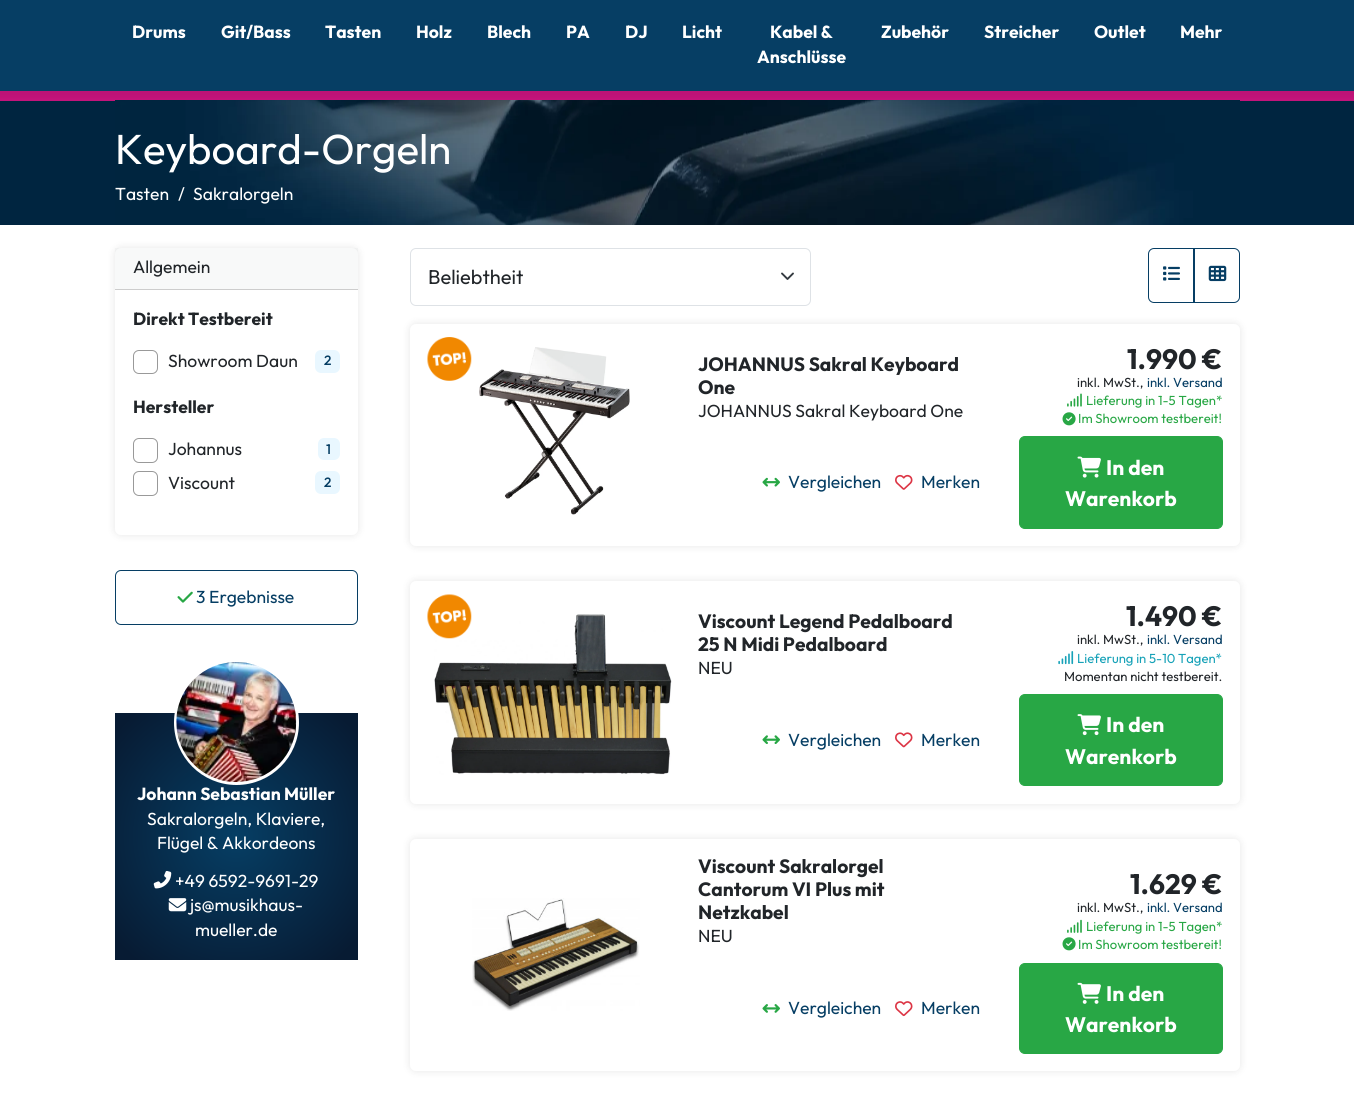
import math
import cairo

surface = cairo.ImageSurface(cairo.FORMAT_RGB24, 1354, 1099)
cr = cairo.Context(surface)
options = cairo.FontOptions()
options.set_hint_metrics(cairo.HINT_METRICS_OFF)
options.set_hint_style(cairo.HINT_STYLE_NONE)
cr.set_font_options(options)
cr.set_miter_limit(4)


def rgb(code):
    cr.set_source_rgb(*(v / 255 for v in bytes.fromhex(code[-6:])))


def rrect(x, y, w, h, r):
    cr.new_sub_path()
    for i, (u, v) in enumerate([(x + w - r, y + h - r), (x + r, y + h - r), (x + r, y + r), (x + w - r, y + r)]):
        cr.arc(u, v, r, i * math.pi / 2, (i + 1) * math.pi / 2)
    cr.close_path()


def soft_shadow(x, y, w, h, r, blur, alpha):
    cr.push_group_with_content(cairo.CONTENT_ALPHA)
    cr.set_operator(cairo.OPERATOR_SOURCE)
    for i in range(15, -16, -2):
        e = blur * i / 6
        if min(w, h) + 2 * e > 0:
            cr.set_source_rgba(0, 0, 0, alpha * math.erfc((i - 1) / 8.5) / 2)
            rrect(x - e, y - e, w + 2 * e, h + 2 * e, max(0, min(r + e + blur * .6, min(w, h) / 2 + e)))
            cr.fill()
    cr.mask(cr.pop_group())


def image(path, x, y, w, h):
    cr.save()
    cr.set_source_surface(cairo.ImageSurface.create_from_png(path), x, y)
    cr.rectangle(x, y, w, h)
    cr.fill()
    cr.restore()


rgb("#ffffff")
cr.paint()
rgb("#c6147c")
cr.rectangle(0, 91, 1354, 10)
cr.fill()
rgb("#002540")
cr.rectangle(0, 101, 1354, 124)
cr.fill()
image("img/1.png", 115, 100, 1125, 125)
rgb("#000000")
soft_shadow(-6, -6, 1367, 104, 0, 3, 0.05)
rgb("#063e64")
cr.rectangle(0, 0, 1354, 91)
cr.fill()
rgb("#000000")
soft_shadow(115, 248, 243, 287, 6, 4, 0.1)
rgb("#ffffff")
rrect(115, 248, 243, 287, 6)
cr.fill()
cr.set_source_rgba(0.129, 0.145, 0.161, 0.03)
cr.rectangle(115, 248, 243, 41)
cr.fill()
rgb("#cdcdcd")
cr.rectangle(115, 289, 243, 1)
cr.fill()
rrect(133.5, 350.5, 24, 23, 5.5)
rgb("#999999")
cr.set_line_width(1)
cr.stroke()
rgb("#e9f7ff")
rrect(315, 350, 25, 23, 6)
cr.fill()
rrect(133.5, 438.5, 24, 24, 5.5)
rgb("#999999")
cr.stroke()
rgb("#e9f7ff")
rrect(318, 438, 22, 22, 6)
cr.fill()
rrect(133.5, 471.5, 24, 24, 5.5)
rgb("#999999")
cr.stroke()
rgb("#e9f7ff")
rrect(315, 471, 25, 23, 6)
cr.fill()
rrect(115.5, 570.5, 242, 54, 5.5)
rgb("#063e64")
cr.stroke()
image("img/2.png", 177, 591, 16, 12)
gradient = cairo.RadialGradient(236, 836, 0, 236, 836, 173)
gradient.add_color_stop_rgba(0.01, 0.024, 0.243, 0.392, 1)
gradient.add_color_stop_rgba(0.92, 0.027, 0.106, 0.2, 1)
cr.set_source(gradient)
cr.rectangle(115, 713, 243, 247)
cr.fill()
rgb("#eeeeee")
cr.arc(236.5, 722.5, 61, 0, 2 * math.pi)
cr.fill_preserve()
rgb("#ffffff")
cr.set_line_width(3)
cr.stroke()
image("img/3.png", 176, 662, 121, 120)
image("img/4.png", 153, 870, 19, 19)
image("img/5.png", 168, 898, 19, 14)
cr.new_path()
cr.move_to(782, 273.5)
cr.line_to(787.5, 279)
cr.line_to(793, 273.5)
rgb("#343a40")
cr.set_line_width(1.9)
cr.set_line_cap(cairo.LINE_CAP_ROUND)
cr.set_line_join(cairo.LINE_JOIN_ROUND)
cr.stroke()
rrect(410.5, 248.5, 400, 57, 5.5)
rgb("#dee2e6")
cr.set_line_width(1)
cr.set_line_cap(cairo.LINE_CAP_BUTT)
cr.set_line_join(cairo.LINE_JOIN_MITER)
cr.stroke()
cr.new_path()
cr.move_to(1154, 248.5)
cr.line_to(1193.5, 248.5)
cr.line_to(1193.5, 302.5)
cr.line_to(1154, 302.5)
cr.curve_to(1151, 302.5, 1148.5, 300, 1148.5, 297)
cr.line_to(1148.5, 254)
cr.curve_to(1148.5, 251, 1151, 248.5, 1154, 248.5)
cr.close_path()
rgb("#063e64")
cr.stroke()
image("img/6.png", 1163, 266, 17, 15)
cr.new_path()
cr.move_to(1194.5, 248.5)
cr.line_to(1234, 248.5)
cr.curve_to(1237, 248.5, 1239.5, 251, 1239.5, 254)
cr.line_to(1239.5, 297)
cr.curve_to(1239.5, 300, 1237, 302.5, 1234, 302.5)
cr.line_to(1194.5, 302.5)
cr.close_path()
cr.stroke()
image("img/7.png", 1208, 265, 19, 17)
rgb("#000000")
soft_shadow(410, 324, 830, 222, 6, 4, 0.1)
rgb("#ffffff")
rrect(410, 324, 830, 222, 6)
cr.fill()
image("img/8.png", 479, 347, 151, 168)
image("img/9.png", 427, 337, 45, 44)
image("img/10.png", 1067, 393, 15, 14)
image("img/11.png", 1062, 412, 14, 14)
image("img/12.png", 762, 477, 18, 10)
image("img/13.png", 895, 474, 18, 16)
rgb("#28a745")
rrect(1019.5, 436.5, 203, 92, 5.5)
cr.fill_preserve()
cr.stroke()
image("img/14.png", 1077, 456, 24, 22)
rgb("#000000")
soft_shadow(410, 581, 830, 223, 6, 4, 0.1)
rgb("#ffffff")
rrect(410, 581, 830, 223, 6)
cr.fill()
image("img/15.png", 434, 614, 238, 161)
image("img/16.png", 427, 594, 45, 45)
image("img/17.png", 1058, 651, 16, 14)
image("img/18.png", 762, 735, 18, 9)
image("img/19.png", 895, 732, 18, 16)
rgb("#28a745")
rrect(1019.5, 694.5, 203, 91, 5.5)
cr.fill_preserve()
cr.stroke()
image("img/20.png", 1077, 714, 24, 22)
rgb("#000000")
soft_shadow(410, 839, 830, 232, 6, 4, 0.1)
rgb("#ffffff")
rrect(410, 839, 830, 232, 6)
cr.fill()
image("img/21.png", 472, 898, 168, 113)
image("img/22.png", 1067, 919, 15, 14)
image("img/11.png", 1062, 937, 14, 14)
image("img/23.png", 762, 1004, 18, 9)
image("img/24.png", 895, 1001, 18, 16)
rgb("#28a745")
rrect(1019.5, 963.5, 203, 90, 5.5)
cr.fill_preserve()
cr.stroke()
image("img/25.png", 1077, 982, 24, 22)
cr.select_font_face("Outfit", cairo.FONT_SLANT_NORMAL, cairo.FONT_WEIGHT_BOLD)
cr.set_font_size(17.5)
rgb("#ffffff")
for x, y, s in [
    (132, 38, "Drums"),
    (221, 38, "Git/Bass"),
    (325, 38, "Tasten"),
    (416, 38, "Holz"),
    (487, 38, "Blech"),
    (566, 38, "PA"),
    (625, 38, "DJ"),
    (682, 38, "Licht"),
    (770, 38, "Kabel &"),
    (757, 63, "Anschlüsse"),
    (881, 38, "Zubehör"),
    (984, 38, "Streicher"),
    (1094, 38, "Outlet"),
    (1180, 38, "Mehr"),
]:
    cr.move_to(x, y)
    cr.show_text(s)
cr.select_font_face("Outfit")
cr.set_font_size(42)
cr.move_to(115, 164)
cr.show_text("Keyboard-Orgeln")
cr.set_font_size(17.5)
for x, y, s in [
    (115, 200, "Tasten"),
    (178, 200, "/"),
    (193, 200, "Sakralorgeln"),
]:
    cr.move_to(x, y)
    cr.show_text(s)
rgb("#212529")
cr.move_to(133, 273)
cr.show_text("Allgemein")
cr.select_font_face("Outfit", cairo.FONT_SLANT_NORMAL, cairo.FONT_WEIGHT_BOLD)
cr.move_to(133, 325)
cr.show_text("Direkt Testbereit")
cr.select_font_face("Outfit")
cr.move_to(168, 367)
cr.show_text("Showroom Daun")
cr.select_font_face("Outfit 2", cairo.FONT_SLANT_NORMAL, cairo.FONT_WEIGHT_BOLD)
cr.set_font_size(13.1)
rgb("#063e64")
cr.move_to(324, 365)
cr.show_text("2")
cr.select_font_face("Outfit", cairo.FONT_SLANT_NORMAL, cairo.FONT_WEIGHT_BOLD)
cr.set_font_size(17.5)
rgb("#212529")
cr.move_to(133, 413)
cr.show_text("Hersteller")
cr.select_font_face("Outfit")
cr.move_to(168, 455)
cr.show_text("Johannus")
cr.select_font_face("Outfit 2", cairo.FONT_SLANT_NORMAL, cairo.FONT_WEIGHT_BOLD)
cr.set_font_size(13.1)
rgb("#063e64")
cr.move_to(326, 454)
cr.show_text("1")
cr.select_font_face("Outfit")
cr.set_font_size(17.5)
rgb("#212529")
cr.move_to(168, 489)
cr.show_text("Viscount")
cr.select_font_face("Outfit 2", cairo.FONT_SLANT_NORMAL, cairo.FONT_WEIGHT_BOLD)
cr.set_font_size(13.1)
rgb("#063e64")
cr.move_to(324, 487)
cr.show_text("2")
cr.select_font_face("Outfit")
cr.set_font_size(17.5)
cr.move_to(196, 603)
cr.show_text("3 Ergebnisse")
cr.select_font_face("Outfit", cairo.FONT_SLANT_NORMAL, cairo.FONT_WEIGHT_BOLD)
rgb("#ffffff")
cr.move_to(137, 800)
cr.show_text("Johann Sebastian Müller")
cr.select_font_face("Outfit")
for x, y, s in [
    (147, 825, "Sakralorgeln, Klaviere,"),
    (157, 849, "Flügel & Akkordeons"),
    (175, 887, "+49 6592-9691-29"),
    (190, 911, "js@musikhaus-"),
    (195, 936, "mueller.de"),
]:
    cr.move_to(x, y)
    cr.show_text(s)
cr.set_font_size(20)
rgb("#212529")
cr.move_to(428, 284)
cr.show_text("Beliebtheit")
cr.select_font_face("Outfit", cairo.FONT_SLANT_NORMAL, cairo.FONT_WEIGHT_BOLD)
cr.set_font_size(19.25)
cr.move_to(698, 371)
cr.show_text("JOHANNUS Sakral Keyboard")
cr.move_to(698, 394)
cr.show_text("One")
cr.select_font_face("Outfit")
cr.set_font_size(17.5)
cr.move_to(698, 417)
cr.show_text("JOHANNUS Sakral Keyboard One")
cr.select_font_face("Outfit", cairo.FONT_SLANT_NORMAL, cairo.FONT_WEIGHT_BOLD)
cr.set_font_size(28)
cr.move_to(1127, 369)
cr.show_text("1.990 €")
cr.select_font_face("Outfit")
cr.set_font_size(13.1)
cr.move_to(1077, 387)
cr.show_text("inkl. MwSt.,")
rgb("#063e64")
cr.move_to(1147, 387)
cr.show_text("inkl. Versand")
rgb("#28a745")
cr.move_to(1086, 405)
cr.show_text("Lieferung in 1-5 Tagen*")
cr.move_to(1078, 423)
cr.show_text("Im Showroom testbereit!")
cr.set_font_size(17.5)
rgb("#063e64")
cr.move_to(788, 488)
cr.show_text("Vergleichen")
cr.move_to(921, 488)
cr.show_text("Merken")
cr.select_font_face("Outfit", cairo.FONT_SLANT_NORMAL, cairo.FONT_WEIGHT_BOLD)
cr.set_font_size(21)
rgb("#ffffff")
cr.move_to(1106, 475)
cr.show_text("In den")
cr.move_to(1065, 506)
cr.show_text("Warenkorb")
cr.set_font_size(19.25)
rgb("#212529")
cr.move_to(698, 628)
cr.show_text("Viscount Legend Pedalboard")
cr.move_to(698, 651)
cr.show_text("25 N Midi Pedalboard")
cr.select_font_face("Outfit")
cr.set_font_size(17.5)
cr.move_to(698, 674)
cr.show_text("NEU")
cr.select_font_face("Outfit", cairo.FONT_SLANT_NORMAL, cairo.FONT_WEIGHT_BOLD)
cr.set_font_size(28)
cr.move_to(1126, 626)
cr.show_text("1.490 €")
cr.select_font_face("Outfit")
cr.set_font_size(13.1)
cr.move_to(1077, 644)
cr.show_text("inkl. MwSt.,")
rgb("#063e64")
cr.move_to(1147, 644)
cr.show_text("inkl. Versand")
rgb("#17a2b8")
cr.move_to(1077, 663)
cr.show_text("Lieferung in 5-10 Tagen*")
rgb("#212529")
cr.move_to(1064, 681)
cr.show_text("Momentan nicht testbereit.")
cr.set_font_size(17.5)
rgb("#063e64")
cr.move_to(788, 746)
cr.show_text("Vergleichen")
cr.move_to(921, 746)
cr.show_text("Merken")
cr.select_font_face("Outfit", cairo.FONT_SLANT_NORMAL, cairo.FONT_WEIGHT_BOLD)
cr.set_font_size(21)
rgb("#ffffff")
cr.move_to(1106, 732)
cr.show_text("In den")
cr.move_to(1065, 764)
cr.show_text("Warenkorb")
cr.set_font_size(19.25)
rgb("#212529")
for x, y, s in [
    (698, 873, "Viscount Sakralorgel"),
    (698, 896, "Cantorum VI Plus mit"),
    (698, 919, "Netzkabel"),
]:
    cr.move_to(x, y)
    cr.show_text(s)
cr.select_font_face("Outfit")
cr.set_font_size(17.5)
cr.move_to(698, 942)
cr.show_text("NEU")
cr.select_font_face("Outfit", cairo.FONT_SLANT_NORMAL, cairo.FONT_WEIGHT_BOLD)
cr.set_font_size(28)
cr.move_to(1130, 894)
cr.show_text("1.629 €")
cr.select_font_face("Outfit")
cr.set_font_size(13.1)
cr.move_to(1077, 912)
cr.show_text("inkl. MwSt.,")
rgb("#063e64")
cr.move_to(1147, 912)
cr.show_text("inkl. Versand")
rgb("#28a745")
cr.move_to(1086, 931)
cr.show_text("Lieferung in 1-5 Tagen*")
cr.move_to(1078, 949)
cr.show_text("Im Showroom testbereit!")
cr.set_font_size(17.5)
rgb("#063e64")
cr.move_to(788, 1014)
cr.show_text("Vergleichen")
cr.move_to(921, 1014)
cr.show_text("Merken")
cr.select_font_face("Outfit", cairo.FONT_SLANT_NORMAL, cairo.FONT_WEIGHT_BOLD)
cr.set_font_size(21)
rgb("#ffffff")
cr.move_to(1106, 1001)
cr.show_text("In den")
cr.move_to(1065, 1032)
cr.show_text("Warenkorb")
surface.write_to_png("page.png")
